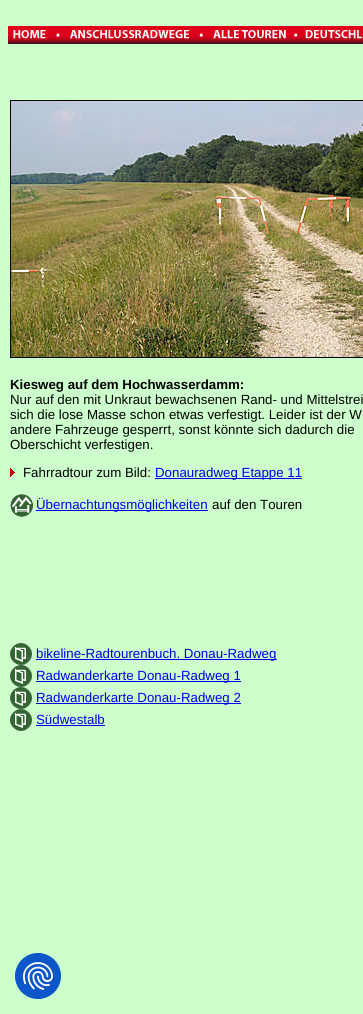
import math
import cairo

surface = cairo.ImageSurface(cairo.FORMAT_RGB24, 363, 1014)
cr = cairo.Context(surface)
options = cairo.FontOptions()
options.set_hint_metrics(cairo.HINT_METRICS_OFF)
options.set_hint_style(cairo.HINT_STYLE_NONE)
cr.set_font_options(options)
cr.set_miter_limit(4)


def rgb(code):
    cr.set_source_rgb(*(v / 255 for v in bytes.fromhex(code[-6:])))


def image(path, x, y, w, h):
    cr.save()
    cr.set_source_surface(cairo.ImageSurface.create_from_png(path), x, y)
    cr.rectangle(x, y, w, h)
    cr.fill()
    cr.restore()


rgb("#ccffcc")
cr.paint()
image("img/1.png", 8, 26, 46, 18)
image("img/2.png", 54, 26, 10, 18)
image("img/3.png", 64, 26, 134, 18)
image("img/4.png", 198, 26, 6, 18)
image("img/5.png", 204, 26, 88, 18)
image("img/6.png", 292, 26, 7, 18)
image("img/7.png", 299, 26, 64, 18)
cr.rectangle(10.5, 100.5, 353, 257)
rgb("#000000")
cr.set_line_width(1)
cr.stroke()
image("img/8.png", 11, 101, 352, 256)
image("img/9.png", 10, 468, 5, 9)
rgb("#0000ee")
cr.rectangle(155, 478, 147, 1)
cr.fill()
image("img/10.png", 10, 494, 23, 23)
cr.rectangle(36, 510, 172, 1)
cr.fill()
image("img/11.png", 10, 643, 22, 22)
cr.rectangle(36, 659, 241, 1)
cr.fill()
image("img/11.png", 10, 665, 22, 22)
cr.rectangle(36, 681, 205, 1)
cr.fill()
image("img/11.png", 10, 687, 22, 22)
cr.rectangle(36, 703, 205, 1)
cr.fill()
image("img/11.png", 10, 709, 22, 22)
cr.rectangle(36, 725, 69, 1)
cr.fill()
rgb("#0d56c9")
cr.arc(38, 976, 22.5, 0, 2 * math.pi)
cr.fill_preserve()
cr.stroke()
image("img/12.png", 23, 962, 30, 28)
cr.select_font_face("Liberation Sans", cairo.FONT_SLANT_NORMAL, cairo.FONT_WEIGHT_BOLD)
cr.set_font_size(13.3)
rgb("#000000")
cr.move_to(10, 389)
cr.show_text("Kiesweg auf dem Hochwasserdamm:")
cr.select_font_face("Liberation Sans")
for x, y, s in [
    (10, 404, "Nur auf den mit Unkraut bewachsenen Rand- und Mittelstrei"),
    (10, 419, "sich die lose Masse schon etwas verfestigt. Leider ist der W"),
    (10, 434, "andere Fahrzeuge gesperrt, sonst könnte sich dadurch die"),
    (10, 449, "Oberschicht verfestigen."),
    (23, 477, "Fahrradtour zum Bild:"),
]:
    cr.move_to(x, y)
    cr.show_text(s)
rgb("#0000ee")
cr.move_to(155, 477)
cr.show_text("Donauradweg Etappe 11")
cr.move_to(36, 509)
cr.show_text("Übernachtungsmöglichkeiten")
rgb("#000000")
cr.move_to(212, 509)
cr.show_text("auf den Touren")
rgb("#0000ee")
for x, y, s in [
    (36, 658, "bikeline-Radtourenbuch. Donau-Radweg"),
    (36, 680, "Radwanderkarte Donau-Radweg 1"),
    (36, 702, "Radwanderkarte Donau-Radweg 2"),
    (36, 724, "Südwestalb"),
]:
    cr.move_to(x, y)
    cr.show_text(s)
surface.write_to_png("page.png")
